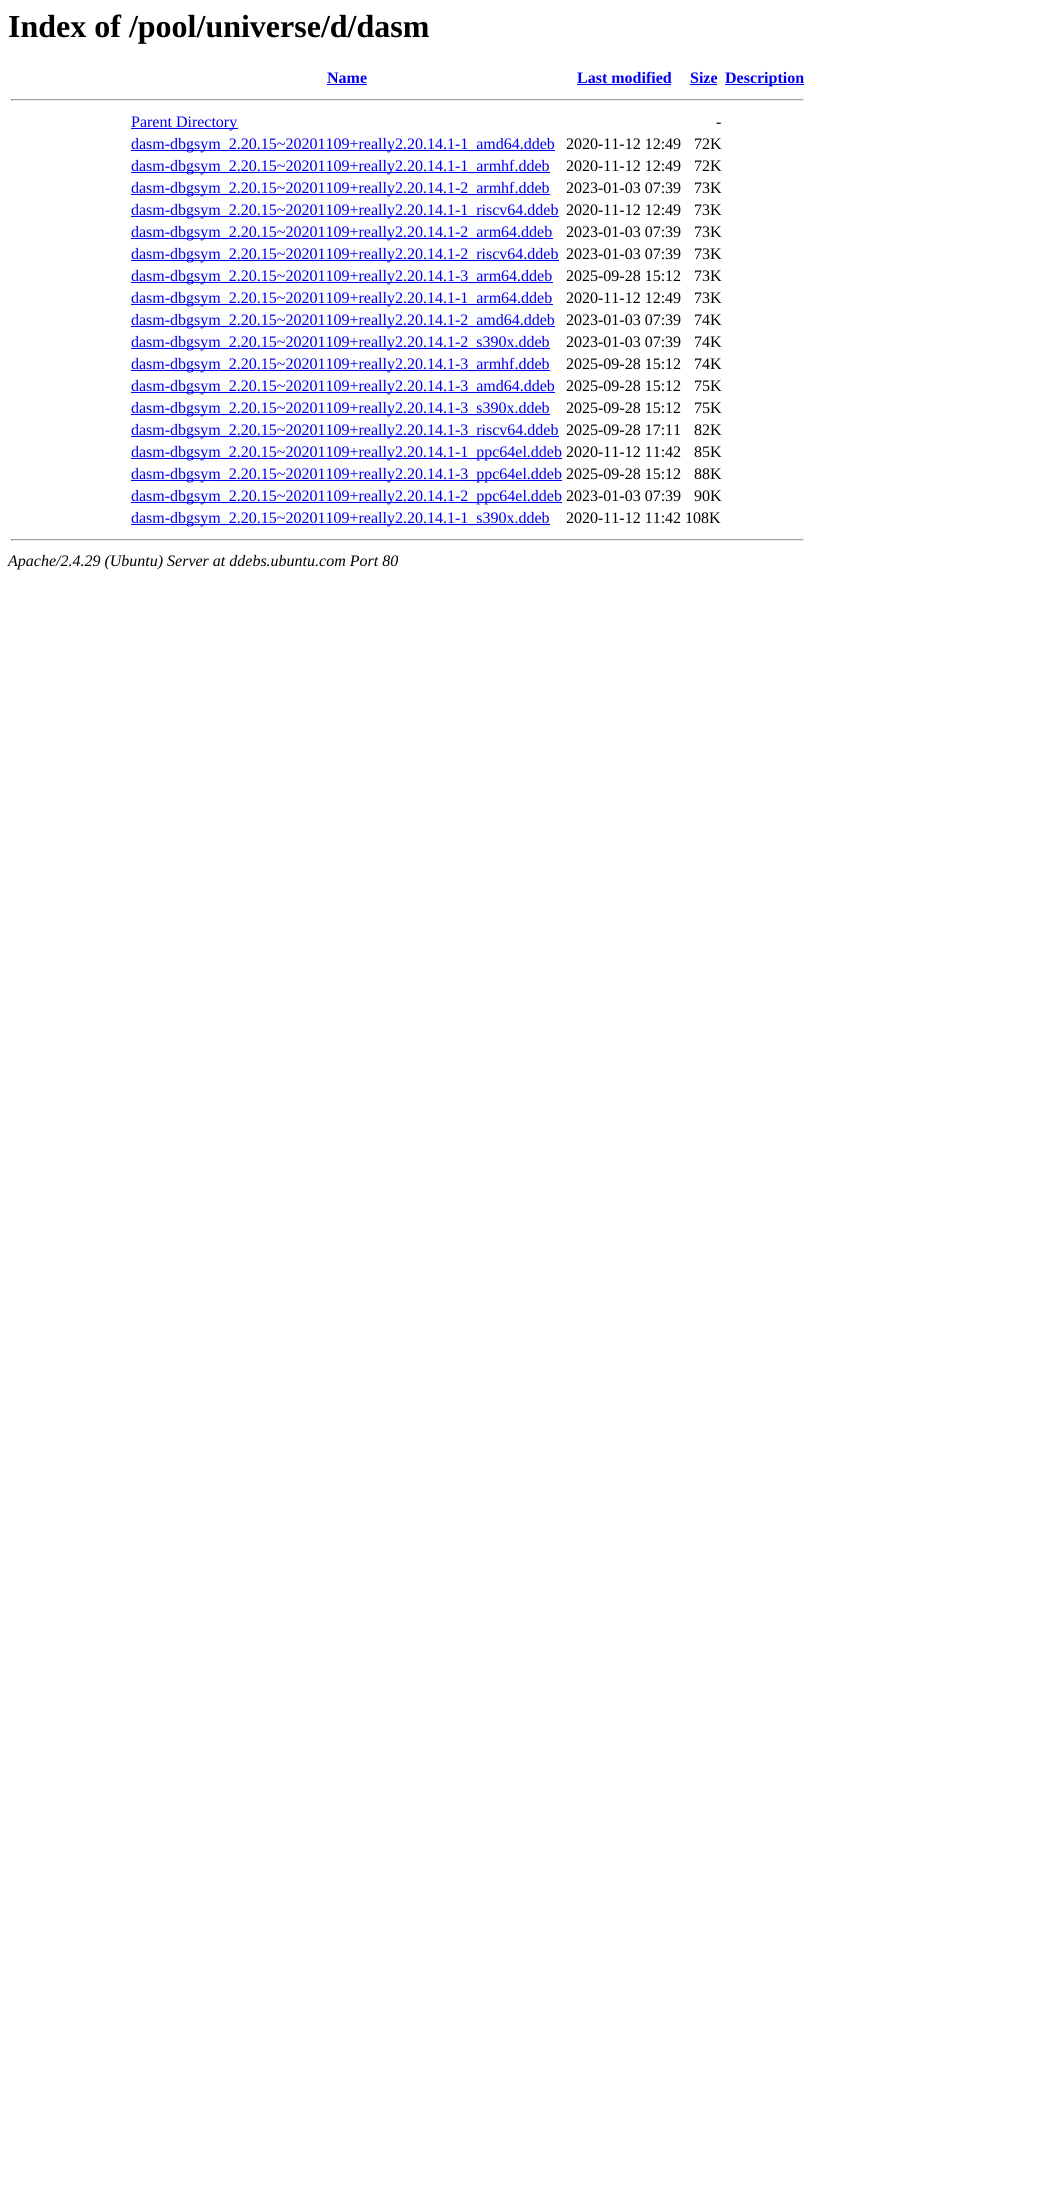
import math
import cairo

surface = cairo.ImageSurface(cairo.FORMAT_RGB24, 1042, 2199)
cr = cairo.Context(surface)
options = cairo.FontOptions()
options.set_hint_metrics(cairo.HINT_METRICS_OFF)
options.set_hint_style(cairo.HINT_STYLE_NONE)
cr.set_font_options(options)
cr.set_miter_limit(4)


def rgb(code):
    cr.set_source_rgb(*(v / 255 for v in bytes.fromhex(code[-6:])))


rgb("#ffffff")
cr.paint()
for x, y, w, h, color in [
    (327, 84, 40, 1, "#0000ee"),
    (577, 84, 94, 1, "#0000ee"),
    (690, 84, 27, 1, "#0000ee"),
    (725, 84, 79, 1, "#0000ee"),
    (11, 99, 793, 1, "#9f9f9f"),
    (803, 99, 1, 2, "#eeeeee"),
    (11, 100, 793, 1, "#eeeeee"),
    (11, 99, 1, 2, "#9f9f9f"),
    (131, 128, 107, 1, "#0000ee"),
    (131, 150, 424, 1, "#0000ee"),
    (131, 172, 419, 1, "#0000ee"),
    (131, 194, 419, 1, "#0000ee"),
    (131, 216, 428, 1, "#0000ee"),
    (131, 238, 422, 1, "#0000ee"),
    (131, 260, 428, 1, "#0000ee"),
    (131, 282, 422, 1, "#0000ee"),
    (131, 304, 422, 1, "#0000ee"),
    (131, 326, 424, 1, "#0000ee"),
    (131, 348, 419, 1, "#0000ee"),
    (131, 370, 419, 1, "#0000ee"),
    (131, 392, 424, 1, "#0000ee"),
    (131, 414, 419, 1, "#0000ee"),
    (131, 436, 428, 1, "#0000ee"),
    (131, 458, 431, 1, "#0000ee"),
    (131, 480, 431, 1, "#0000ee"),
    (131, 502, 431, 1, "#0000ee"),
    (131, 524, 419, 1, "#0000ee"),
    (11, 539, 793, 1, "#9f9f9f"),
    (803, 539, 1, 2, "#eeeeee"),
    (11, 540, 793, 1, "#eeeeee"),
    (11, 539, 1, 2, "#9f9f9f"),
]:
    rgb(color)
    cr.rectangle(x, y, w, h)
    cr.fill()
cr.select_font_face("Liberation Serif", cairo.FONT_SLANT_NORMAL, cairo.FONT_WEIGHT_BOLD)
cr.set_font_size(32)
rgb("#000000")
cr.move_to(8, 37)
cr.show_text("Index of /pool/universe/d/dasm")
cr.set_font_size(16)
rgb("#0000ee")
for x, y, s in [
    (327, 83, "Name"),
    (577, 83, "Last modified"),
    (690, 83, "Size"),
    (725, 83, "Description"),
]:
    cr.move_to(x, y)
    cr.show_text(s)
cr.select_font_face("Liberation Serif")
cr.move_to(131, 127)
cr.show_text("Parent Directory")
rgb("#000000")
cr.move_to(716, 127)
cr.show_text("-")
rgb("#0000ee")
cr.move_to(131, 149)
cr.show_text("dasm-dbgsym_2.20.15~20201109+really2.20.14.1-1_amd64.ddeb")
rgb("#000000")
cr.move_to(566, 149)
cr.show_text("2020-11-12 12:49")
cr.move_to(694, 149)
cr.show_text("72K")
rgb("#0000ee")
cr.move_to(131, 171)
cr.show_text("dasm-dbgsym_2.20.15~20201109+really2.20.14.1-1_armhf.ddeb")
rgb("#000000")
cr.move_to(566, 171)
cr.show_text("2020-11-12 12:49")
cr.move_to(694, 171)
cr.show_text("72K")
rgb("#0000ee")
cr.move_to(131, 193)
cr.show_text("dasm-dbgsym_2.20.15~20201109+really2.20.14.1-2_armhf.ddeb")
rgb("#000000")
cr.move_to(566, 193)
cr.show_text("2023-01-03 07:39")
cr.move_to(694, 193)
cr.show_text("73K")
rgb("#0000ee")
cr.move_to(131, 215)
cr.show_text("dasm-dbgsym_2.20.15~20201109+really2.20.14.1-1_riscv64.ddeb")
rgb("#000000")
cr.move_to(566, 215)
cr.show_text("2020-11-12 12:49")
cr.move_to(694, 215)
cr.show_text("73K")
rgb("#0000ee")
cr.move_to(131, 237)
cr.show_text("dasm-dbgsym_2.20.15~20201109+really2.20.14.1-2_arm64.ddeb")
rgb("#000000")
cr.move_to(566, 237)
cr.show_text("2023-01-03 07:39")
cr.move_to(694, 237)
cr.show_text("73K")
rgb("#0000ee")
cr.move_to(131, 259)
cr.show_text("dasm-dbgsym_2.20.15~20201109+really2.20.14.1-2_riscv64.ddeb")
rgb("#000000")
cr.move_to(566, 259)
cr.show_text("2023-01-03 07:39")
cr.move_to(694, 259)
cr.show_text("73K")
rgb("#0000ee")
cr.move_to(131, 281)
cr.show_text("dasm-dbgsym_2.20.15~20201109+really2.20.14.1-3_arm64.ddeb")
rgb("#000000")
cr.move_to(566, 281)
cr.show_text("2025-09-28 15:12")
cr.move_to(694, 281)
cr.show_text("73K")
rgb("#0000ee")
cr.move_to(131, 303)
cr.show_text("dasm-dbgsym_2.20.15~20201109+really2.20.14.1-1_arm64.ddeb")
rgb("#000000")
cr.move_to(566, 303)
cr.show_text("2020-11-12 12:49")
cr.move_to(694, 303)
cr.show_text("73K")
rgb("#0000ee")
cr.move_to(131, 325)
cr.show_text("dasm-dbgsym_2.20.15~20201109+really2.20.14.1-2_amd64.ddeb")
rgb("#000000")
cr.move_to(566, 325)
cr.show_text("2023-01-03 07:39")
cr.move_to(694, 325)
cr.show_text("74K")
rgb("#0000ee")
cr.move_to(131, 347)
cr.show_text("dasm-dbgsym_2.20.15~20201109+really2.20.14.1-2_s390x.ddeb")
rgb("#000000")
cr.move_to(566, 347)
cr.show_text("2023-01-03 07:39")
cr.move_to(694, 347)
cr.show_text("74K")
rgb("#0000ee")
cr.move_to(131, 369)
cr.show_text("dasm-dbgsym_2.20.15~20201109+really2.20.14.1-3_armhf.ddeb")
rgb("#000000")
cr.move_to(566, 369)
cr.show_text("2025-09-28 15:12")
cr.move_to(694, 369)
cr.show_text("74K")
rgb("#0000ee")
cr.move_to(131, 391)
cr.show_text("dasm-dbgsym_2.20.15~20201109+really2.20.14.1-3_amd64.ddeb")
rgb("#000000")
cr.move_to(566, 391)
cr.show_text("2025-09-28 15:12")
cr.move_to(694, 391)
cr.show_text("75K")
rgb("#0000ee")
cr.move_to(131, 413)
cr.show_text("dasm-dbgsym_2.20.15~20201109+really2.20.14.1-3_s390x.ddeb")
rgb("#000000")
cr.move_to(566, 413)
cr.show_text("2025-09-28 15:12")
cr.move_to(694, 413)
cr.show_text("75K")
rgb("#0000ee")
cr.move_to(131, 435)
cr.show_text("dasm-dbgsym_2.20.15~20201109+really2.20.14.1-3_riscv64.ddeb")
rgb("#000000")
cr.move_to(566, 435)
cr.show_text("2025-09-28 17:11")
cr.move_to(694, 435)
cr.show_text("82K")
rgb("#0000ee")
cr.move_to(131, 457)
cr.show_text("dasm-dbgsym_2.20.15~20201109+really2.20.14.1-1_ppc64el.ddeb")
rgb("#000000")
cr.move_to(566, 457)
cr.show_text("2020-11-12 11:42")
cr.move_to(694, 457)
cr.show_text("85K")
rgb("#0000ee")
cr.move_to(131, 479)
cr.show_text("dasm-dbgsym_2.20.15~20201109+really2.20.14.1-3_ppc64el.ddeb")
rgb("#000000")
cr.move_to(566, 479)
cr.show_text("2025-09-28 15:12")
cr.move_to(694, 479)
cr.show_text("88K")
rgb("#0000ee")
cr.move_to(131, 501)
cr.show_text("dasm-dbgsym_2.20.15~20201109+really2.20.14.1-2_ppc64el.ddeb")
rgb("#000000")
cr.move_to(566, 501)
cr.show_text("2023-01-03 07:39")
cr.move_to(694, 501)
cr.show_text("90K")
rgb("#0000ee")
cr.move_to(131, 523)
cr.show_text("dasm-dbgsym_2.20.15~20201109+really2.20.14.1-1_s390x.ddeb")
rgb("#000000")
cr.move_to(566, 523)
cr.show_text("2020-11-12 11:42 108K")
cr.select_font_face("Liberation Serif", cairo.FONT_SLANT_ITALIC)
cr.move_to(8, 566)
cr.show_text("Apache/2.4.29 (Ubuntu) Server at ddebs.ubuntu.com Port 80")
surface.write_to_png("page.png")
